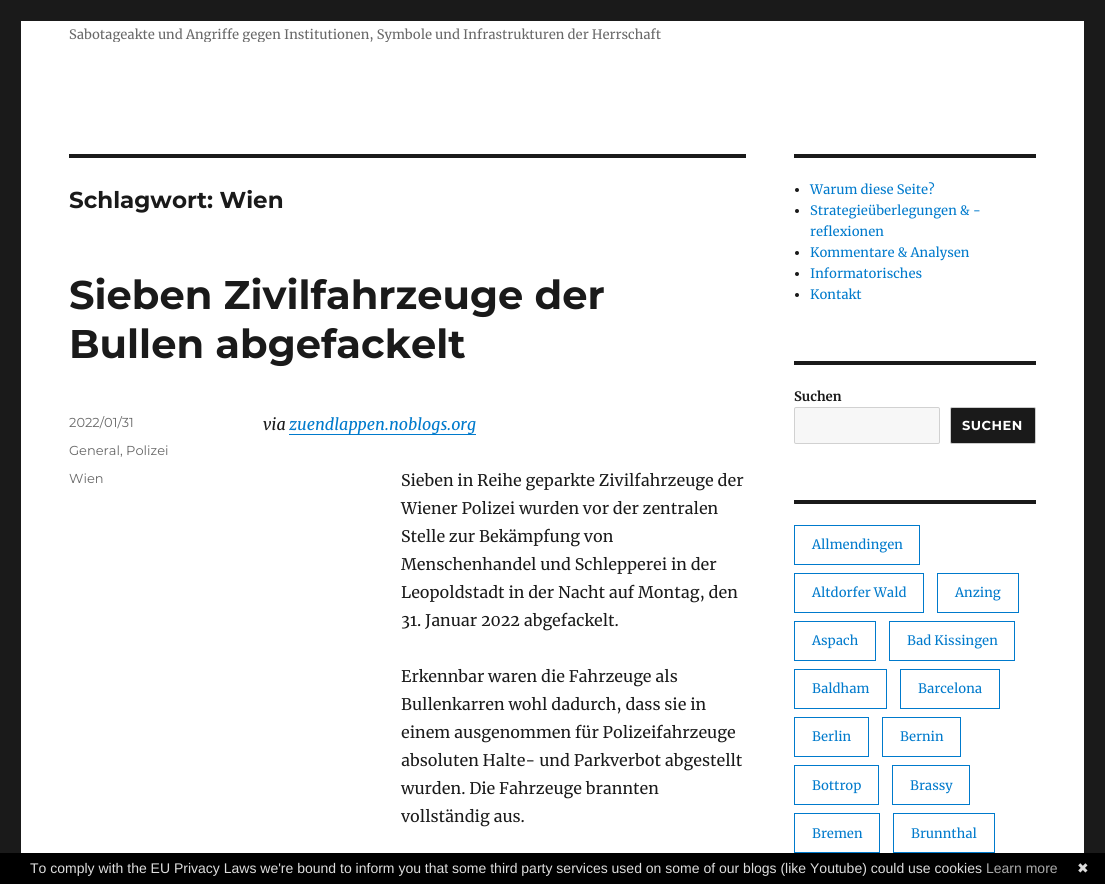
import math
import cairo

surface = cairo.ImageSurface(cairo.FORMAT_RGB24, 1105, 884)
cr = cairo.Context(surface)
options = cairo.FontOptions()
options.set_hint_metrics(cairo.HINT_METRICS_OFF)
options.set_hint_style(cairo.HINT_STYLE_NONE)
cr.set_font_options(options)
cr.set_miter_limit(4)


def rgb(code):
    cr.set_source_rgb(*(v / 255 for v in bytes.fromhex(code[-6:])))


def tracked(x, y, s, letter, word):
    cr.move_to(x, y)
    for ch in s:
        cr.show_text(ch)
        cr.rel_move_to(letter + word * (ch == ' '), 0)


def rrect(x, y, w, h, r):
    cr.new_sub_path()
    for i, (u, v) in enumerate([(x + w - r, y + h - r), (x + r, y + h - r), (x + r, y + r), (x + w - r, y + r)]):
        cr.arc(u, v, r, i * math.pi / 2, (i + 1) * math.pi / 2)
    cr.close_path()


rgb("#1a1a1a")
cr.paint()
for x, y, w, h, color in [
    (21, 21, 1063, 832, "#ffffff"),
    (69, 154, 677, 4, "#1a1a1a"),
    (289, 434, 187, 1, "#007acc"),
    (794, 154, 242, 4, "#1a1a1a"),
]:
    rgb(color)
    cr.rectangle(x, y, w, h)
    cr.fill()
cr.arc(797, 190, 2, 0, 2 * math.pi)
cr.fill()
cr.arc(797, 211, 2, 0, 2 * math.pi)
cr.fill()
cr.arc(797, 253, 2, 0, 2 * math.pi)
cr.fill()
cr.arc(797, 274, 2, 0, 2 * math.pi)
cr.fill()
cr.arc(797, 295, 2, 0, 2 * math.pi)
cr.fill()
cr.rectangle(794, 361, 242, 4)
cr.fill()
rgb("#f7f7f7")
rrect(794.5, 407.5, 145, 36, 1.5)
cr.fill_preserve()
rgb("#d1d1d1")
cr.set_line_width(1)
cr.stroke()
rgb("#1a1a1a")
rrect(950.5, 407.5, 85, 36, 1.5)
cr.fill_preserve()
rgb("#cccccc")
cr.stroke()
rgb("#1a1a1a")
cr.rectangle(794, 500, 242, 4)
cr.fill()
cr.rectangle(794.5, 525.5, 125, 39)
rgb("#007acc")
cr.stroke()
cr.rectangle(794.5, 573.5, 129, 39)
cr.stroke()
cr.rectangle(937.5, 573.5, 81, 39)
cr.stroke()
cr.rectangle(794.5, 621.5, 81, 39)
cr.stroke()
cr.rectangle(889.5, 621.5, 125, 39)
cr.stroke()
cr.rectangle(794.5, 669.5, 92, 39)
cr.stroke()
cr.rectangle(900.5, 669.5, 99, 39)
cr.stroke()
cr.rectangle(794.5, 717.5, 74, 39)
cr.stroke()
cr.rectangle(882.5, 717.5, 78, 39)
cr.stroke()
cr.rectangle(794.5, 765.5, 84, 39)
cr.stroke()
cr.rectangle(892.5, 765.5, 77, 39)
cr.stroke()
cr.rectangle(794.5, 813.5, 85, 39)
cr.stroke()
cr.rectangle(893.5, 813.5, 101, 39)
cr.stroke()
rgb("#000000")
cr.rectangle(0, 853, 1105, 31)
cr.fill()
cr.save()
cr.rectangle(69, 0, 592, 42)
cr.clip()
cr.select_font_face("Merriweather")
cr.set_font_size(13)
rgb("#686868")
cr.move_to(69, 39)
cr.show_text("Sabotageakte und Angriffe gegen Institutionen, Symbole und Infrastrukturen der Herrschaft")
cr.restore()
cr.select_font_face("Montserrat Thin")
cr.set_font_size(23)
rgb("#1a1a1a")
cr.move_to(69, 208)
cr.show_text("Schlagwort: Wien")
cr.set_font_size(40)
cr.move_to(69, 309)
cr.show_text("Sieben Zivilfahrzeuge der")
cr.move_to(69, 358)
cr.show_text("Bullen abgefackelt")
cr.select_font_face("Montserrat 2 Thin")
cr.set_font_size(13)
rgb("#686868")
for x, y, s in [
    (69, 427, "2022/01/31"),
    (69, 455, "General, Polizei"),
    (69, 483, "Wien"),
]:
    cr.move_to(x, y)
    cr.show_text(s)
cr.select_font_face("Merriweather", cairo.FONT_SLANT_ITALIC)
cr.set_font_size(16)
rgb("#1a1a1a")
cr.move_to(263, 430)
cr.show_text("via")
rgb("#007acc")
cr.move_to(289, 430)
cr.show_text("zuendlappen.noblogs.org")
cr.select_font_face("Merriweather")
rgb("#1a1a1a")
for x, y, s in [
    (401, 486, "Sieben in Reihe geparkte Zivilfahrzeuge der"),
    (401, 514, "Wiener Polizei wurden vor der zentralen"),
    (401, 542, "Stelle zur Bekämpfung von"),
    (401, 570, "Menschenhandel und Schlepperei in der"),
    (401, 598, "Leopoldstadt in der Nacht auf Montag, den"),
    (401, 626, "31. Januar 2022 abgefackelt."),
    (401, 682, "Erkennbar waren die Fahrzeuge als"),
    (401, 710, "Bullenkarren wohl dadurch, dass sie in"),
    (401, 738, "einem ausgenommen für Polizeifahrzeuge"),
    (401, 766, "absoluten Halte- und Parkverbot abgestellt"),
    (401, 794, "wurden. Die Fahrzeuge brannten"),
    (401, 822, "vollständig aus."),
]:
    cr.move_to(x, y)
    cr.show_text(s)
cr.set_font_size(13)
rgb("#007acc")
for x, y, s in [
    (810, 194, "Warum diese Seite?"),
    (810, 215, "Strategieüberlegungen & -"),
    (810, 236, "reflexionen"),
    (810, 257, "Kommentare & Analysen"),
    (810, 278, "Informatorisches"),
    (810, 299, "Kontakt"),
]:
    cr.move_to(x, y)
    cr.show_text(s)
cr.select_font_face("Merriweather", cairo.FONT_SLANT_NORMAL, cairo.FONT_WEIGHT_BOLD)
rgb("#1a1a1a")
cr.move_to(794, 401)
cr.show_text("Suchen")
cr.select_font_face("Montserrat Thin")
rgb("#ffffff")
tracked(962, 430, "SUCHEN", 0.5, 0)
cr.select_font_face("Merriweather")
rgb("#007acc")
for x, y, s in [
    (812, 549, "Allmendingen"),
    (812, 597, "Altdorfer Wald"),
    (955, 597, "Anzing"),
    (812, 645, "Aspach"),
    (907, 645, "Bad Kissingen"),
    (812, 693, "Baldham"),
    (918, 693, "Barcelona"),
    (812, 741, "Berlin"),
    (900, 741, "Bernin"),
    (812, 790, "Bottrop"),
    (910, 790, "Brassy"),
    (812, 838, "Bremen"),
    (911, 838, "Brunnthal"),
]:
    cr.move_to(x, y)
    cr.show_text(s)
cr.select_font_face("Liberation Sans")
cr.set_font_size(14)
rgb("#dddddd")
cr.move_to(30, 873)
cr.show_text("To comply with the EU Privacy Laws we're bound to inform you that some third party services used on some of our blogs (like Youtube) could use cookies")
rgb("#aaaaaa")
cr.move_to(986, 873)
cr.show_text("Learn more")
cr.select_font_face("DejaVu Sans")
rgb("#dddddd")
cr.move_to(1077, 873)
cr.show_text("✖")
surface.write_to_png("page.png")
